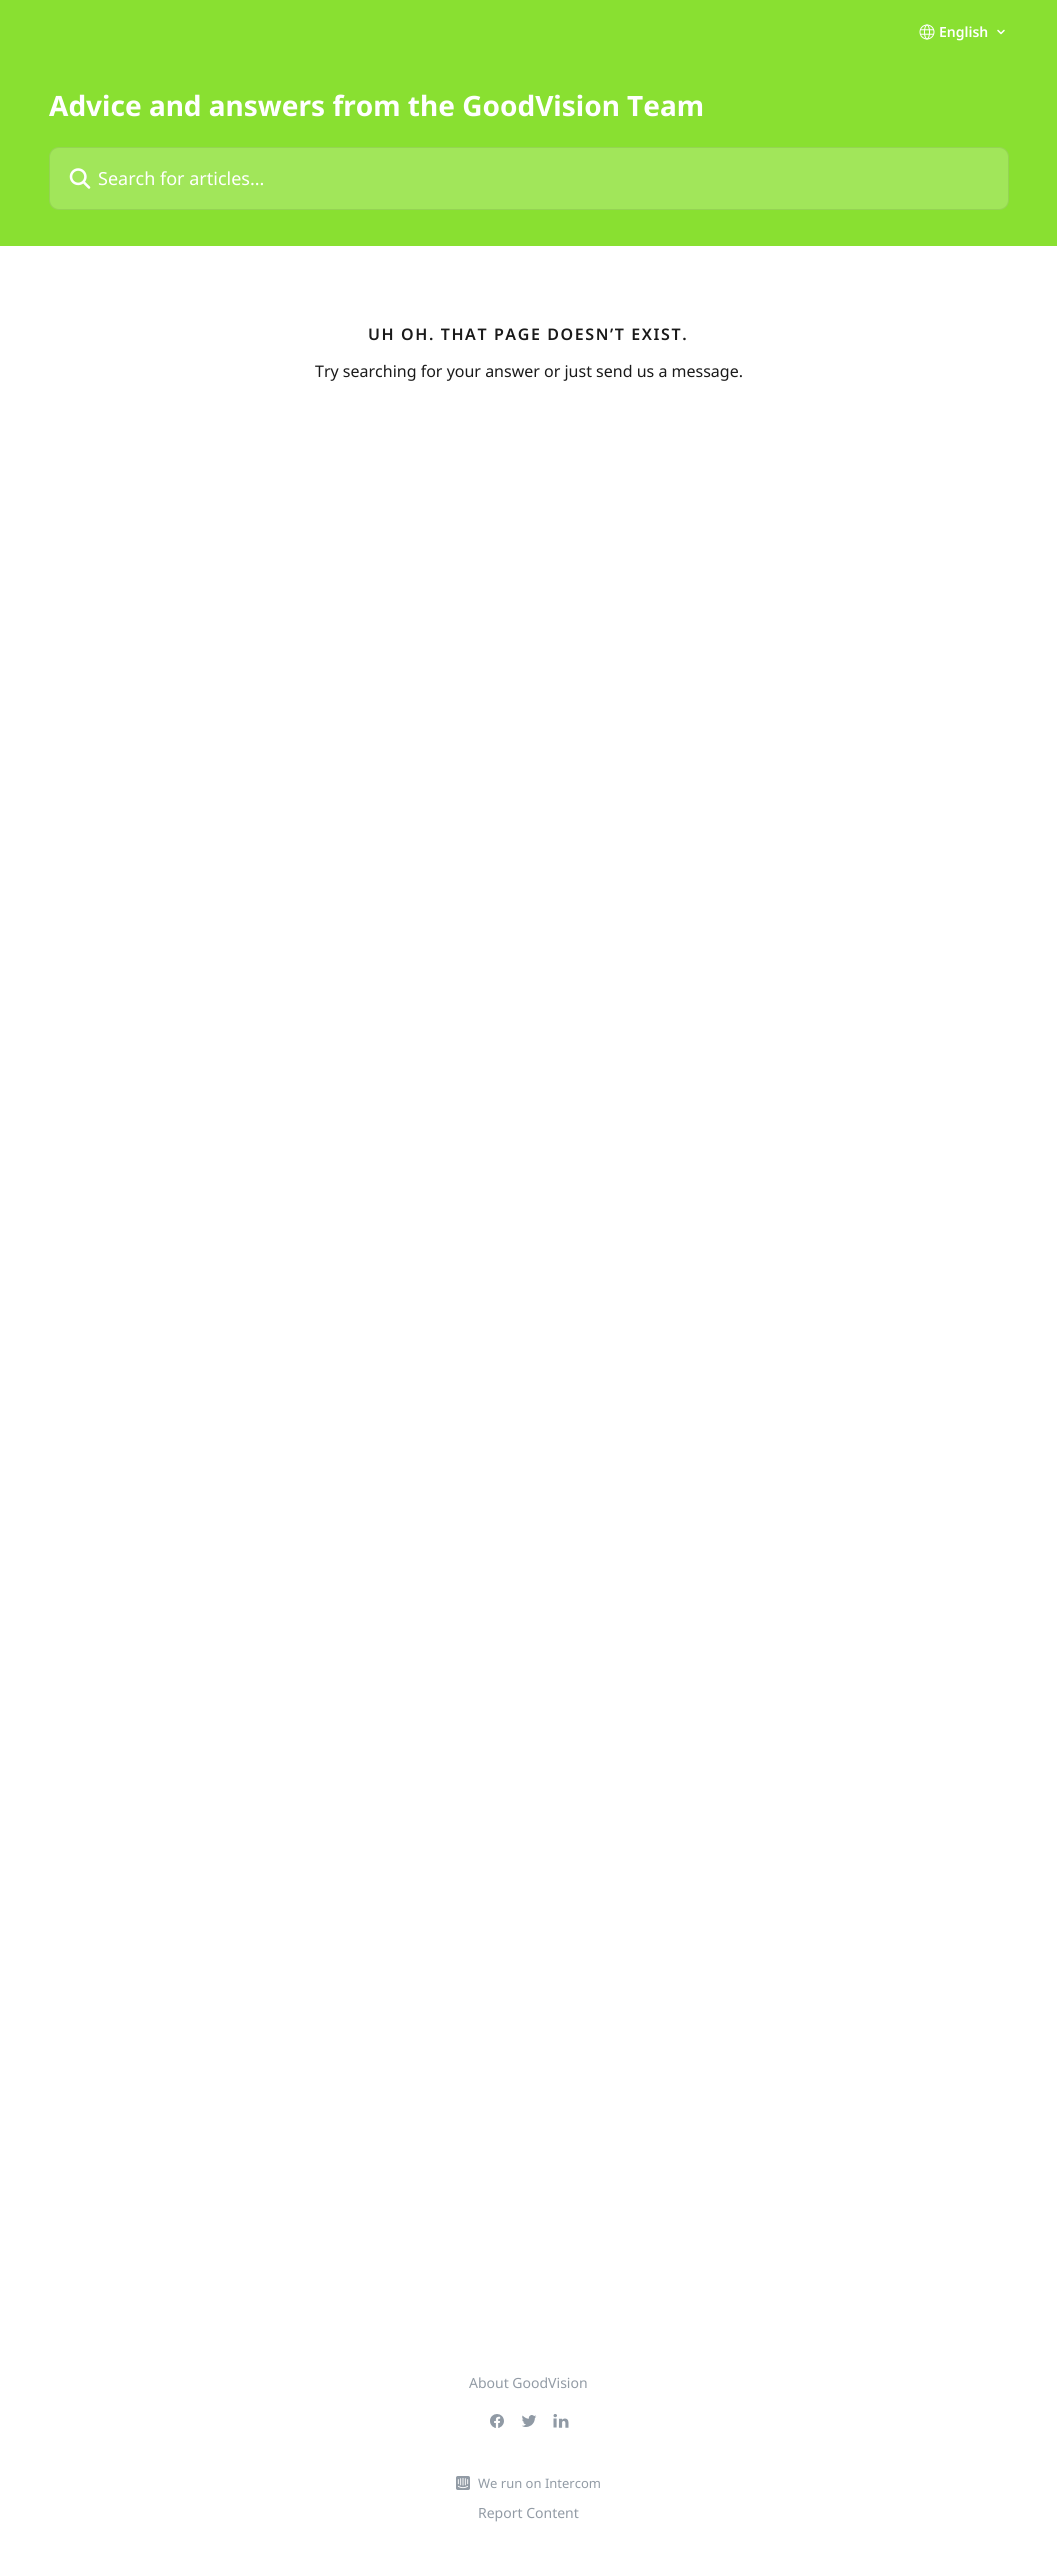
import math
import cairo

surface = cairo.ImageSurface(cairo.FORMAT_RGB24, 1057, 2572)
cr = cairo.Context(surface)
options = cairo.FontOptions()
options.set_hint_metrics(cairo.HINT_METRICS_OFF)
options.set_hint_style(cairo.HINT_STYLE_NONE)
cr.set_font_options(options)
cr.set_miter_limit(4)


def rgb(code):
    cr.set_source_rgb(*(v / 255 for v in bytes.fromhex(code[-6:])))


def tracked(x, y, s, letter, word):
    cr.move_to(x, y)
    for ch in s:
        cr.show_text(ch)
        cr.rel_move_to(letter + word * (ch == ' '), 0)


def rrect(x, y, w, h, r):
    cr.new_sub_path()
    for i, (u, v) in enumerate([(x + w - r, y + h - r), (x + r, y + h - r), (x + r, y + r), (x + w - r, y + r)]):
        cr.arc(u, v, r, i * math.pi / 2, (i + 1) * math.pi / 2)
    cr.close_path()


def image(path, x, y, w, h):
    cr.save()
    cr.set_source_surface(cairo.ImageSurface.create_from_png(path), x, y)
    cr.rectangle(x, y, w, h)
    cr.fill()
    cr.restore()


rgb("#ffffff")
cr.paint()
rgb("#89e031")
cr.rectangle(0, 0, 1057, 246)
cr.fill()
image("img/1.png", 919, 24, 16, 16)
cr.new_path()
cr.move_to(998, 30.5)
cr.line_to(1001, 33.5)
cr.line_to(1004, 30.5)
rgb("#ffffff")
cr.set_line_width(1.5)
cr.set_line_cap(cairo.LINE_CAP_ROUND)
cr.set_line_join(cairo.LINE_JOIN_ROUND)
cr.stroke()
cr.set_source_rgba(1, 1, 1, 0.2)
rrect(49, 147, 960, 63, 10)
cr.fill()
rrect(49.5, 147.5, 959, 62, 9.5)
cr.set_source_rgba(0, 0, 0, 0.08)
cr.set_line_width(1)
cr.set_line_cap(cairo.LINE_CAP_BUTT)
cr.set_line_join(cairo.LINE_JOIN_MITER)
cr.stroke()
image("img/2.png", 69, 168, 22, 21)
image("img/3.png", 490, 2414, 14, 14)
image("img/4.png", 522, 2415, 15, 12)
image("img/5.png", 553, 2414, 16, 14)
image("img/6.png", 456, 2476, 14, 14)
cr.select_font_face("Noto Sans SemiBold")
cr.set_font_size(14)
rgb("#ffffff")
cr.move_to(939, 37)
cr.show_text("English")
cr.select_font_face("Noto Sans", cairo.FONT_SLANT_NORMAL, cairo.FONT_WEIGHT_BOLD)
cr.set_font_size(28)
cr.move_to(49, 116)
cr.show_text("Advice and answers from the GoodVision Team")
cr.select_font_face("Noto Sans")
cr.set_font_size(18)
cr.move_to(98, 185)
cr.show_text("Search for articles...")
cr.select_font_face("Noto Sans SemiBold")
cr.set_font_size(16)
rgb("#1a1a1a")
tracked(368, 340, "UH OH. THAT PAGE DOESN’T EXIST.", 1.6, 0)
cr.select_font_face("Noto Sans")
cr.move_to(315, 377)
cr.show_text("Try searching for your answer or just send us a message.")
cr.set_font_size(14)
rgb("#929ba5")
cr.move_to(469, 2388)
cr.show_text("About GoodVision")
cr.set_font_size(13)
cr.move_to(478, 2488)
cr.show_text("We run on Intercom")
cr.set_font_size(14)
cr.move_to(478, 2518)
cr.show_text("Report Content")
surface.write_to_png("page.png")
